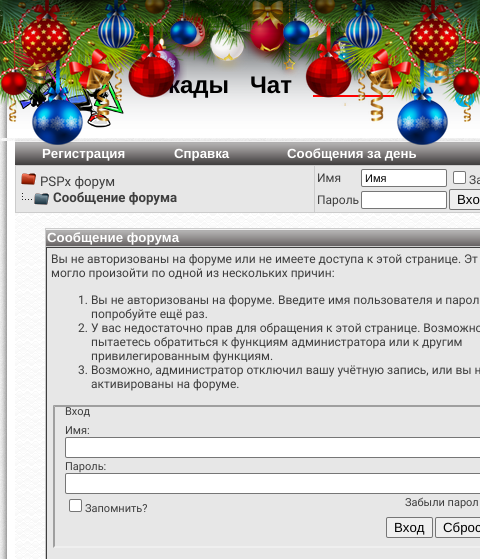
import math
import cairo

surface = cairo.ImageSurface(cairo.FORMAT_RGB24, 480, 559)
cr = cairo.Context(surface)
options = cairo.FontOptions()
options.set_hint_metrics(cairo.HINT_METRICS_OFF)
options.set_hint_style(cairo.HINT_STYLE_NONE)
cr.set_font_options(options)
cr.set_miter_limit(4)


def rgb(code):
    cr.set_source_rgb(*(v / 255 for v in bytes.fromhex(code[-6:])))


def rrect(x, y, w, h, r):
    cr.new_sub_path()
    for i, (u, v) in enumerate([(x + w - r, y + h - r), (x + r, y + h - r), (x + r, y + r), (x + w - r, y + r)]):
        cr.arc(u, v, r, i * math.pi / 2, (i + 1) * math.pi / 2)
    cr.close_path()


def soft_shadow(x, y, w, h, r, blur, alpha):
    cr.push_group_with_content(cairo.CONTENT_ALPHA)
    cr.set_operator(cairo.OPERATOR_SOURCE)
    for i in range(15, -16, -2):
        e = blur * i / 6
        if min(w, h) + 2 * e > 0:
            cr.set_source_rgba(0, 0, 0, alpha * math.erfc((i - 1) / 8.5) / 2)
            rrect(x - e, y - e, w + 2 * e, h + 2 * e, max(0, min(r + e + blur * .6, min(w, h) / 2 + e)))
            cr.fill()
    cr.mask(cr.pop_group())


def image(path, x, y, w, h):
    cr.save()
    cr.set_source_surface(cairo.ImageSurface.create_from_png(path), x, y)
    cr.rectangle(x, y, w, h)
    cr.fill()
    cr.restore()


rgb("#ffffff")
cr.paint()
image("img/1.png", 0, 0, 480, 559)
image("img/25.png", 0, 34, 15, 104)
image("img/26.png", 15, 29, 465, 112)
image("img/27.png", 18, 49, 106, 85)
rgb("#ff0000")
cr.rectangle(313, 95, 81, 2)
cr.fill()
image("img/28.png", 421, 62, 59, 21)
image("img/29.png", 455, 90, 20, 17)
image("img/30.png", 0, 141, 15, 418)
image("img/31.png", 15, 213, 465, 346)
image("img/32.png", 15, 141, 138, 24)
image("img/33.png", 153, 141, 97, 24)
image("img/34.png", 250, 141, 205, 24)
image("img/35.png", 455, 141, 25, 24)
rgb("#cccccc")
cr.rectangle(15, 165, 465, 48)
cr.fill()
rgb("#e7e7e7")
cr.rectangle(16, 166, 298, 46)
cr.fill()
image("img/36.png", 21, 173, 15, 12)
image("img/37.png", 22, 193, 27, 12)
cr.rectangle(315, 166, 165, 46)
cr.fill()
rgb("#ffffff")
rrect(361.5, 169.5, 85, 17, 1.5)
cr.fill_preserve()
rgb("#767676")
cr.set_line_width(1)
cr.stroke()
rgb("#ffffff")
rrect(453.5, 171.5, 12, 12, 1.5)
cr.fill_preserve()
rgb("#767676")
cr.stroke()
rgb("#ffffff")
rrect(361.5, 191.5, 85, 17, 1.5)
cr.fill_preserve()
rgb("#767676")
cr.stroke()
rgb("#efefef")
rrect(449.5, 189.5, 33, 20, 1.5)
cr.fill_preserve()
rgb("#767676")
cr.stroke()
rgb("#cccccc")
cr.rectangle(45, 228, 435, 331)
cr.fill()
image("img/38.png", 46, 229, 434, 17)
rgb("#e7e7e7")
cr.rectangle(46.5, 247.5, 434, 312)
cr.fill_preserve()
rgb("#3e3e3e")
cr.stroke()
rgb("#9f9f9f")
cr.new_path()
cr.move_to(53, 405)
cr.line_to(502, 405)
cr.line_to(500, 407)
cr.line_to(55, 407)
cr.close_path()
cr.fill()
rgb("#efefef")
cr.new_path()
cr.move_to(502, 548)
cr.line_to(53, 548)
cr.line_to(55, 546)
cr.line_to(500, 546)
cr.close_path()
cr.fill()
rgb("#9f9f9f")
cr.new_path()
cr.move_to(53, 548)
cr.line_to(53, 405)
cr.line_to(55, 407)
cr.line_to(55, 546)
cr.close_path()
cr.fill()
rgb("#ffffff")
rrect(65.5, 437.5, 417, 20, 1.5)
cr.fill_preserve()
rgb("#767676")
cr.stroke()
rgb("#ffffff")
rrect(65.5, 473.5, 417, 20, 1.5)
cr.fill_preserve()
rgb("#767676")
cr.stroke()
rgb("#ffffff")
rrect(69.5, 499.5, 12, 12, 1.5)
cr.fill_preserve()
rgb("#767676")
cr.stroke()
rgb("#efefef")
rrect(386.5, 517.5, 46, 20, 1.5)
cr.fill_preserve()
rgb("#767676")
cr.stroke()
rgb("#efefef")
rrect(435.5, 517.5, 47, 20, 1.5)
cr.fill_preserve()
rgb("#767676")
cr.stroke()
cr.select_font_face("Liberation Sans", cairo.FONT_SLANT_NORMAL, cairo.FONT_WEIGHT_BOLD)
cr.set_font_size(24)
rgb("#000000")
cr.move_to(168, 93)
cr.show_text("кады")
cr.move_to(250, 93)
cr.show_text("Чат")
image("img/2.png", 0, 0, 480, 106)
image("img/21.png", 434, 0, 38, 47)
image("img/19.png", 380, 0, 51, 82)
image("img/20.png", 398, 0, 61, 24)
image("img/18.png", 373, 0, 25, 66)
image("img/22.png", 465, 31, 15, 41)
image("img/15.png", 367, 0, 6, 69)
image("img/7.png", 137, 0, 50, 97)
image("img/12.png", 170, 10, 41, 46)
image("img/13.png", 204, 6, 44, 66)
image("img/10.png", 243, 0, 49, 63)
image("img/11.png", 287, 0, 46, 49)
image("img/17.png", 327, 10, 36, 63)
image("img/14.png", 289, 0, 78, 28)
image("img/24.png", 283, 0, 197, 145)
image("img/8.png", 177, 0, 28, 31)
image("img/4.png", 7, 0, 50, 82)
image("img/6.png", 56, 0, 43, 47)
image("img/5.png", 25, 0, 61, 25)
image("img/3.png", 0, 0, 25, 66)
image("img/16.png", 92, 35, 41, 38)
image("img/23.png", 0, 0, 197, 145)
image("img/9.png", 205, 0, 50, 50)
rgb("#000000")
soft_shadow(0, -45, 480, 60, 0, 15, 0.75)
cr.set_font_size(13.25)
rgb("#ffffff")
for x, y, s in [
    (42, 158, "Регистрация"),
    (174, 158, "Справка"),
    (287, 158, "Сообщения за день"),
]:
    cr.move_to(x, y)
    cr.show_text(s)
cr.select_font_face("Roboto")
rgb("#3e3e3e")
cr.move_to(40, 186)
cr.show_text("PSPx форум")
cr.select_font_face("Roboto", cairo.FONT_SLANT_NORMAL, cairo.FONT_WEIGHT_BOLD)
cr.move_to(53, 202)
cr.show_text("Сообщение форума")
cr.select_font_face("Roboto")
cr.set_font_size(12)
cr.move_to(317, 182)
cr.show_text("Имя")
cr.select_font_face("Liberation Sans")
cr.set_font_size(11)
rgb("#000000")
cr.move_to(365, 182)
cr.show_text("Имя")
cr.select_font_face("Roboto")
cr.set_font_size(12)
rgb("#3e3e3e")
cr.move_to(469, 184)
cr.show_text("За")
cr.move_to(317, 204)
cr.show_text("Пароль")
cr.select_font_face("Liberation Sans")
cr.set_font_size(13.25)
rgb("#000000")
cr.move_to(457, 204)
cr.show_text("Вхо")
cr.select_font_face("Liberation Sans", cairo.FONT_SLANT_NORMAL, cairo.FONT_WEIGHT_BOLD)
rgb("#ffffff")
cr.move_to(47, 242)
cr.show_text("Сообщение форума")
cr.select_font_face("Roboto")
cr.set_font_size(12)
rgb("#3e3e3e")
for x, y, s in [
    (51, 263, "Вы не авторизованы на форуме или не имеете доступа к этой странице. Эт"),
    (51, 277, "могло произойти по одной из нескольких причин:"),
    (78, 304, "1. Вы не авторизованы на форуме. Введите имя пользователя и парол"),
    (91, 318, "попробуйте ещё раз."),
    (78, 332, "2. У вас недостаточно прав для обращения к этой странице. Возможно"),
    (91, 346, "пытаетесь обратиться к функциям администратора или к другим"),
    (91, 360, "привилегированным функциям."),
    (78, 374, "3. Возможно, администратор отключил вашу учётную запись, или вы н"),
    (91, 388, "активированы на форуме."),
]:
    cr.move_to(x, y)
    cr.show_text(s)
cr.set_font_size(11)
for x, y, s in [
    (65, 415, "Вход"),
    (65, 434, "Имя:"),
    (65, 470, "Пароль:"),
    (85, 512, "Запомнить?"),
    (405, 506, "Забыли парол"),
]:
    cr.move_to(x, y)
    cr.show_text(s)
cr.select_font_face("Liberation Sans")
cr.set_font_size(13.25)
rgb("#000000")
cr.move_to(394, 532)
cr.show_text("Вход")
cr.move_to(443, 532)
cr.show_text("Сброс")
surface.write_to_png("page.png")
